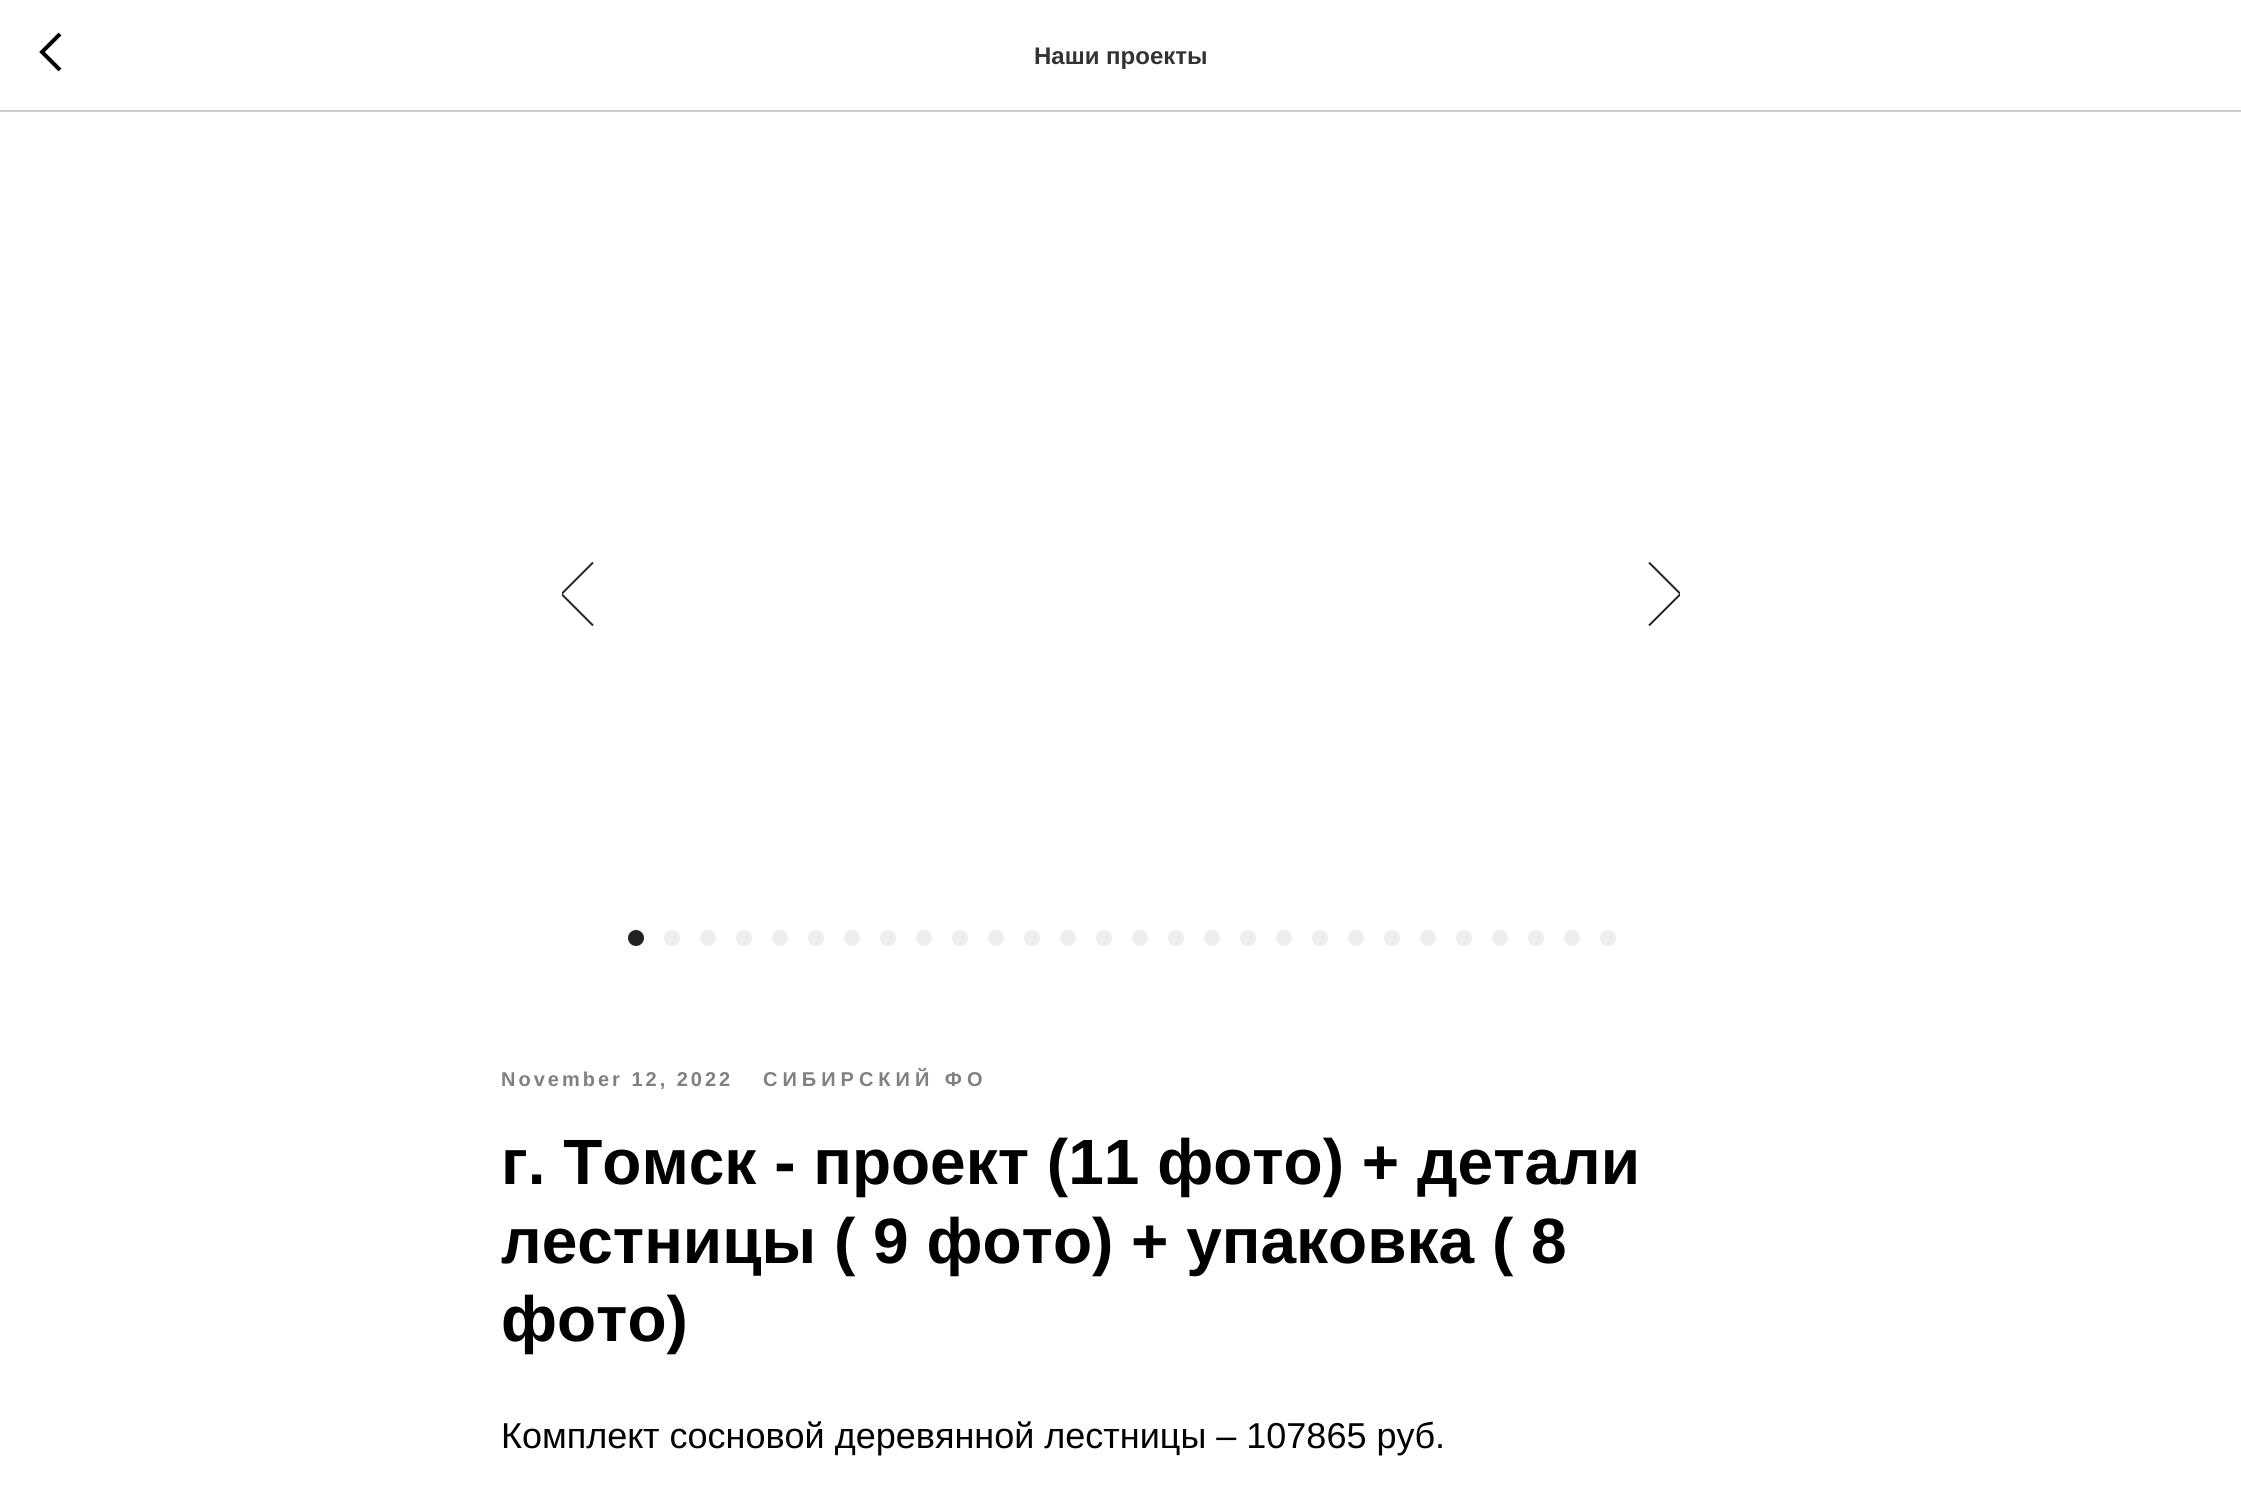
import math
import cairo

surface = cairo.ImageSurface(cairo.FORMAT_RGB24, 2241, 1490)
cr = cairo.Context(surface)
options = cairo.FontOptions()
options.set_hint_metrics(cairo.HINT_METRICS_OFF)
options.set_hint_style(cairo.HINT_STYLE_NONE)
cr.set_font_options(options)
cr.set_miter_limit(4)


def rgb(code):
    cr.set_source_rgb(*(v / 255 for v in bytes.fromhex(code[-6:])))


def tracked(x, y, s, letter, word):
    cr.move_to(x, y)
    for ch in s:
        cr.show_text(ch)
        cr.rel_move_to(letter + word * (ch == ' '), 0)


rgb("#ffffff")
cr.paint()
rgb("#cccccc")
cr.rectangle(0, 110, 2241, 2)
cr.fill()
cr.new_path()
cr.move_to(60, 70)
cr.line_to(42, 52)
cr.line_to(60, 34)
rgb("#000000")
cr.set_line_width(4)
cr.stroke()
cr.save()
cr.rectangle(562, 562, 34, 64)
cr.clip()
cr.new_path()
cr.move_to(593, 625.5)
cr.line_to(561.5, 594)
cr.line_to(593, 562.5)
rgb("#222222")
cr.set_line_width(2)
cr.stroke()
cr.restore()
cr.save()
cr.rectangle(1648, 562, 32, 64)
cr.clip()
cr.new_path()
cr.move_to(1649, 562.5)
cr.line_to(1680.5, 594)
cr.line_to(1649, 625.5)
rgb("#222222")
cr.set_line_width(2)
cr.stroke()
cr.restore()
rgb("#222222")
cr.arc(636, 938, 8, 0, 2 * math.pi)
cr.fill()
rgb("#eeeeee")
cr.arc(672, 938, 8, 0, 2 * math.pi)
cr.fill()
cr.arc(708, 938, 8, 0, 2 * math.pi)
cr.fill()
cr.arc(744, 938, 8, 0, 2 * math.pi)
cr.fill()
cr.arc(780, 938, 8, 0, 2 * math.pi)
cr.fill()
cr.arc(816, 938, 8, 0, 2 * math.pi)
cr.fill()
cr.arc(852, 938, 8, 0, 2 * math.pi)
cr.fill()
cr.arc(888, 938, 8, 0, 2 * math.pi)
cr.fill()
cr.arc(924, 938, 8, 0, 2 * math.pi)
cr.fill()
cr.arc(960, 938, 8, 0, 2 * math.pi)
cr.fill()
cr.arc(996, 938, 8, 0, 2 * math.pi)
cr.fill()
cr.arc(1032, 938, 8, 0, 2 * math.pi)
cr.fill()
cr.arc(1068, 938, 8, 0, 2 * math.pi)
cr.fill()
cr.arc(1104, 938, 8, 0, 2 * math.pi)
cr.fill()
cr.arc(1140, 938, 8, 0, 2 * math.pi)
cr.fill()
cr.arc(1176, 938, 8, 0, 2 * math.pi)
cr.fill()
cr.arc(1212, 938, 8, 0, 2 * math.pi)
cr.fill()
cr.arc(1248, 938, 8, 0, 2 * math.pi)
cr.fill()
cr.arc(1284, 938, 8, 0, 2 * math.pi)
cr.fill()
cr.arc(1320, 938, 8, 0, 2 * math.pi)
cr.fill()
cr.arc(1356, 938, 8, 0, 2 * math.pi)
cr.fill()
cr.arc(1392, 938, 8, 0, 2 * math.pi)
cr.fill()
cr.arc(1428, 938, 8, 0, 2 * math.pi)
cr.fill()
cr.arc(1464, 938, 8, 0, 2 * math.pi)
cr.fill()
cr.arc(1500, 938, 8, 0, 2 * math.pi)
cr.fill()
cr.arc(1536, 938, 8, 0, 2 * math.pi)
cr.fill()
cr.arc(1572, 938, 8, 0, 2 * math.pi)
cr.fill()
cr.arc(1608, 938, 8, 0, 2 * math.pi)
cr.fill()
cr.select_font_face("Liberation Sans", cairo.FONT_SLANT_NORMAL, cairo.FONT_WEIGHT_BOLD)
cr.set_font_size(24)
rgb("#333333")
cr.move_to(1034, 64)
cr.show_text("Наши проекты")
cr.set_font_size(20)
rgb("#808080")
tracked(501, 1086, "November 12, 2022", 3, 0)
tracked(763, 1086, "СИБИРСКИЙ ФО", 5, 0)
cr.set_font_size(64)
rgb("#000000")
for x, y, s in [
    (501, 1184, "г. Томск - проект (11 фото) + детали"),
    (501, 1263, "лестницы ( 9 фото) + упаковка ( 8"),
    (501, 1341, "фото)"),
]:
    cr.move_to(x, y)
    cr.show_text(s)
cr.select_font_face("Liberation Sans")
cr.set_font_size(36)
cr.move_to(501, 1448)
cr.show_text("Комплект сосновой деревянной лестницы – 107865 руб.")
surface.write_to_png("page.png")
